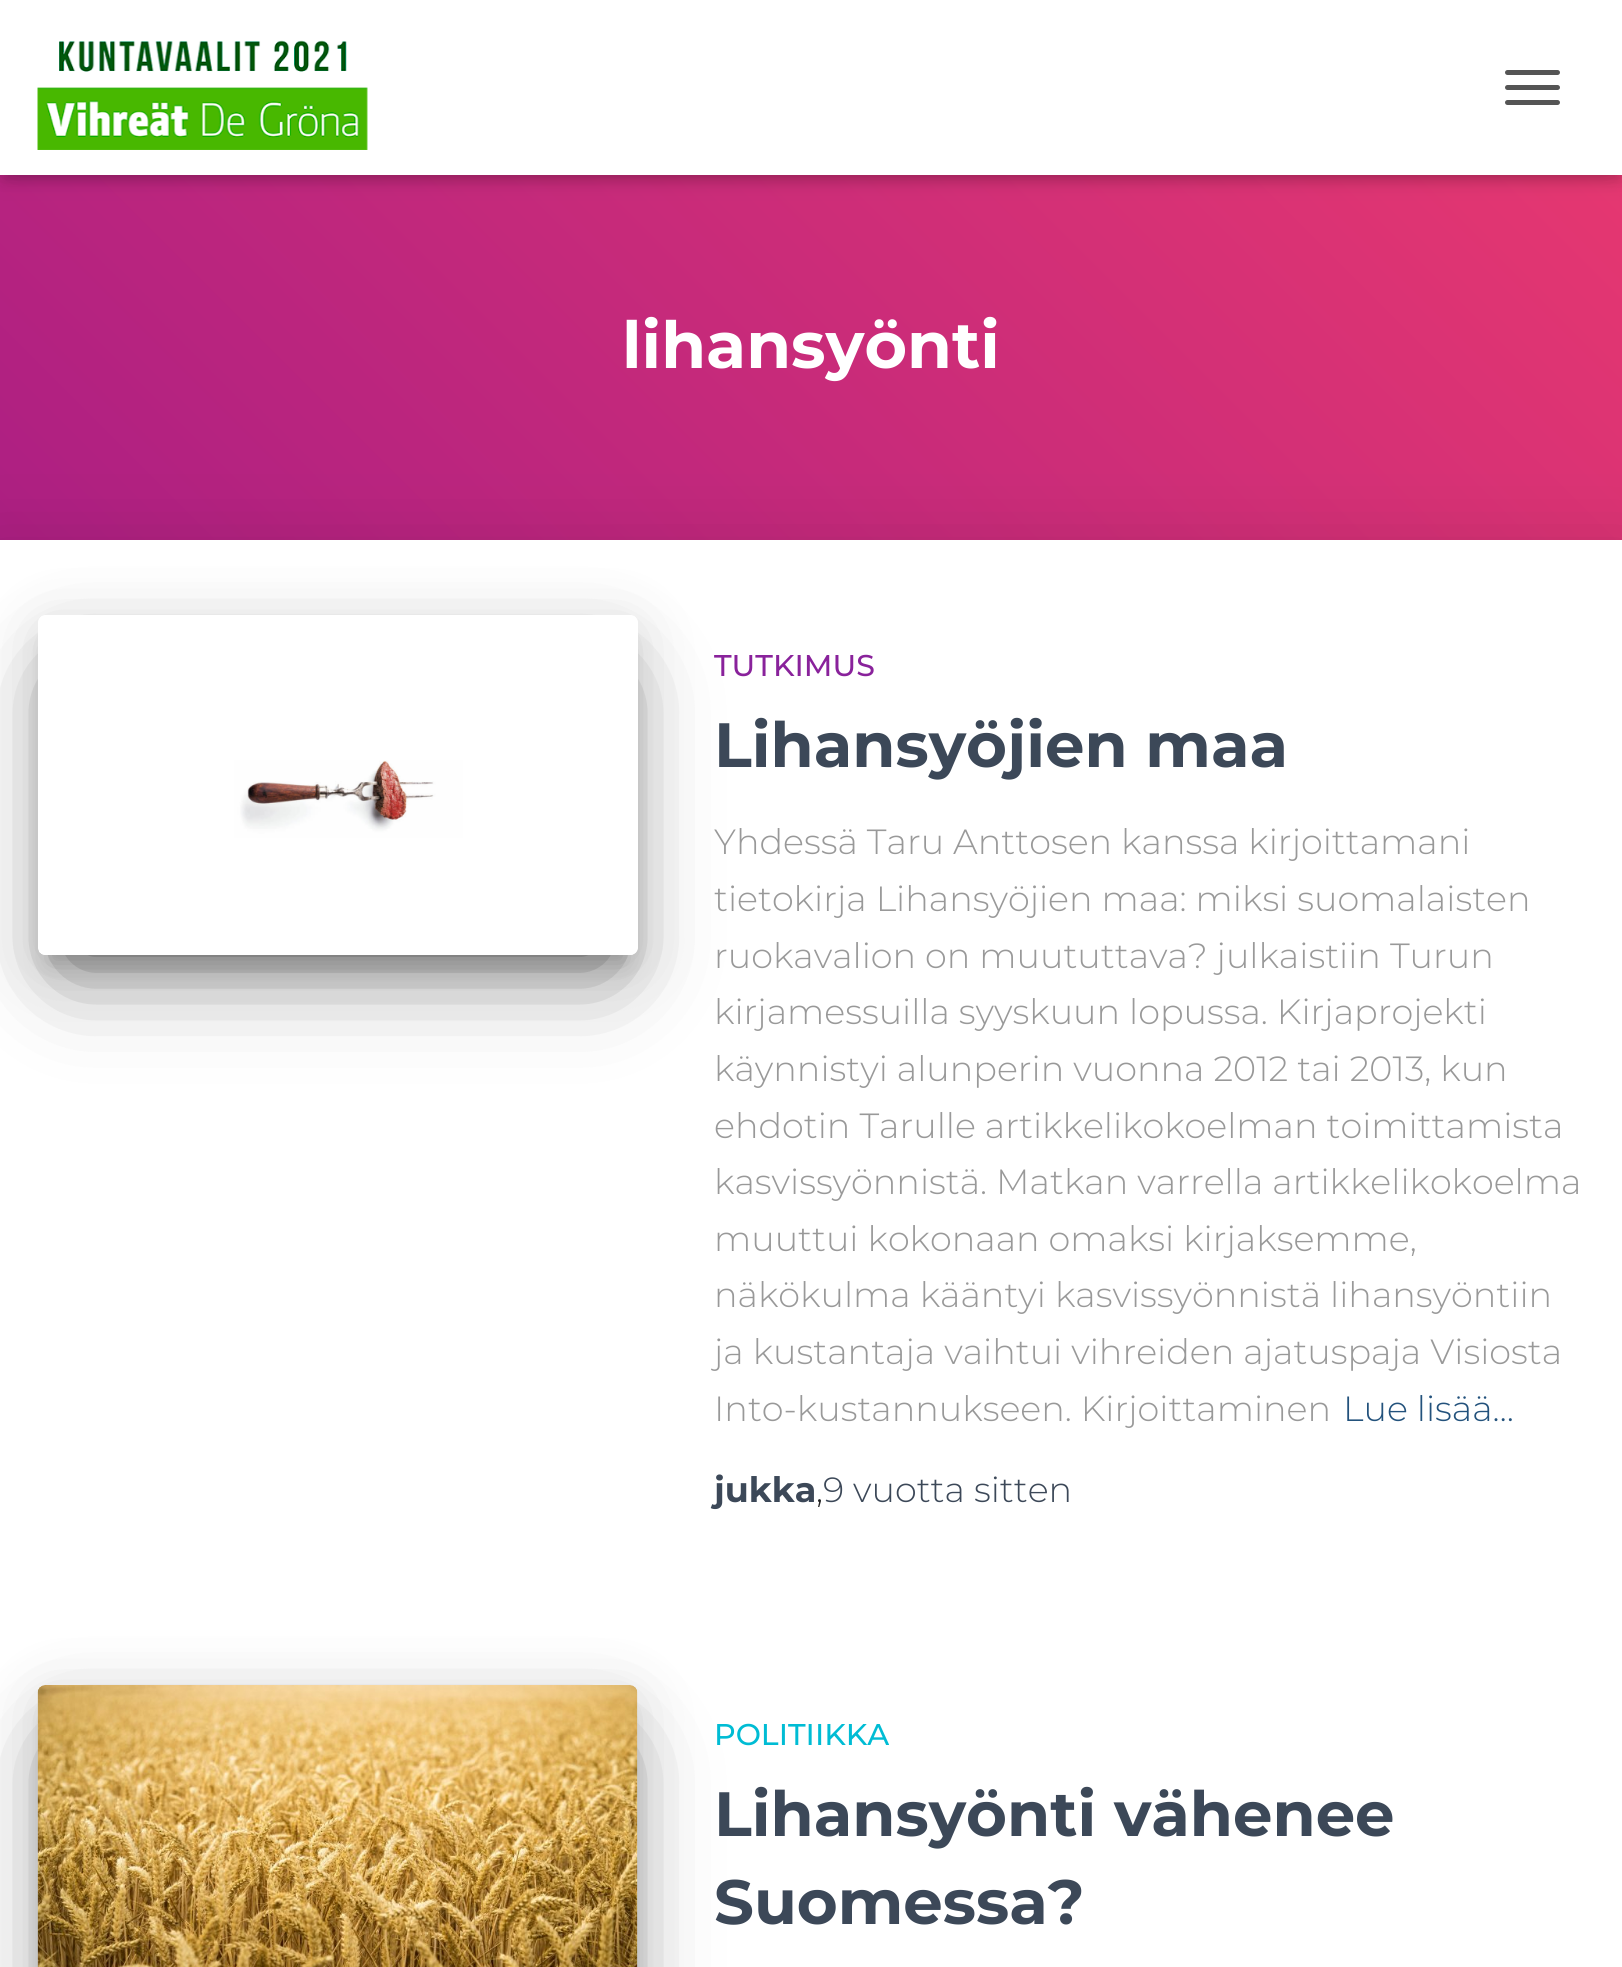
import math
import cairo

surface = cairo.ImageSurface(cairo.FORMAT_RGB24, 1622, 1967)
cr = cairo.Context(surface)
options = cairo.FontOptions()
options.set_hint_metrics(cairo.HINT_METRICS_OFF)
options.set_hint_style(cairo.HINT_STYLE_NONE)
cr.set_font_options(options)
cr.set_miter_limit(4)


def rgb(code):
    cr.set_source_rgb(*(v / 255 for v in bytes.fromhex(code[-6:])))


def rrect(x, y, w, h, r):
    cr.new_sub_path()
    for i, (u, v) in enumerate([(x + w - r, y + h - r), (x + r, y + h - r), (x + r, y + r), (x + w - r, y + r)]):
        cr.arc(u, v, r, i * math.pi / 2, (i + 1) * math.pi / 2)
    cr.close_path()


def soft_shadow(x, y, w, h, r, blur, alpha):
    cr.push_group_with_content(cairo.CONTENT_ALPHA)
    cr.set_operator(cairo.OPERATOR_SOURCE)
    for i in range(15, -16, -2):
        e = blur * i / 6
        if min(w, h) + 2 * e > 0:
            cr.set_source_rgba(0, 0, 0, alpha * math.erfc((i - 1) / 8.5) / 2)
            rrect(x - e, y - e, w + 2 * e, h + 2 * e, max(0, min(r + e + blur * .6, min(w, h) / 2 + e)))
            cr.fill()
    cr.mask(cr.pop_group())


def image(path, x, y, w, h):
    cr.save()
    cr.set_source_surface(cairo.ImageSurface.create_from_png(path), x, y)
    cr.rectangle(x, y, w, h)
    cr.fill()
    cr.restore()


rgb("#ffffff")
cr.paint()
gradient = cairo.LinearGradient(233, 923, 1389, -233)
gradient.add_color_stop_rgba(0, 0.659, 0.114, 0.518, 1)
gradient.add_color_stop_rgba(1, 0.918, 0.224, 0.435, 1)
cr.set_source(gradient)
cr.rectangle(0, 175, 1622, 365)
cr.fill()
rgb("#000000")
soft_shadow(5, 15, 1613, 165, 0, 6, 0.1)
soft_shadow(0, 3, 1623, 175, 0, 12.5, 0.12)
soft_shadow(15, 18, 1593, 145, 0, 12.5, 0.42)
rgb("#ffffff")
cr.rectangle(0, 0, 1622, 175)
cr.fill()
image("img/1.png", 37, 40, 331, 110)
rgb("#555555")
rrect(1505, 70, 55, 5, 2.5)
cr.fill()
rrect(1505, 85, 55, 5, 2.5)
cr.fill()
rrect(1505, 100, 55, 5, 2.5)
cr.fill()
rgb("#000000")
soft_shadow(-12, 543, 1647, 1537, 0, 37.5, 0.12)
rgb("#ffffff")
cr.rectangle(0, 540, 1622, 1427)
cr.fill()
cr.save()
cr.set_fill_rule(cairo.FILL_RULE_EVEN_ODD)
cr.new_path()
cr.move_to(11, 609)
cr.line_to(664, 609)
cr.line_to(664, 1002)
cr.line_to(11, 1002)
cr.close_path()
cr.move_to(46, 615)
cr.line_to(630, 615)
cr.curve_to(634.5, 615, 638, 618.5, 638, 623)
cr.line_to(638, 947)
cr.curve_to(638, 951.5, 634.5, 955, 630, 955)
cr.line_to(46, 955)
cr.curve_to(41.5, 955, 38, 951.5, 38, 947)
cr.line_to(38, 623)
cr.curve_to(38, 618.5, 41.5, 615, 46, 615)
cr.close_path()
cr.clip()
rgb("#000000")
soft_shadow(50, 648, 575, 315, 0, 12.5, 0.2)
cr.restore()
cr.save()
cr.set_fill_rule(cairo.FILL_RULE_EVEN_ODD)
cr.new_path()
cr.move_to(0, 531)
cr.line_to(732, 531)
cr.line_to(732, 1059)
cr.line_to(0, 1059)
cr.close_path()
cr.move_to(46, 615)
cr.line_to(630, 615)
cr.curve_to(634.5, 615, 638, 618.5, 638, 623)
cr.line_to(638, 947)
cr.curve_to(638, 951.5, 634.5, 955, 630, 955)
cr.line_to(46, 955)
cr.curve_to(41.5, 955, 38, 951.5, 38, 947)
cr.line_to(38, 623)
cr.curve_to(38, 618.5, 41.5, 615, 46, 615)
cr.close_path()
cr.clip()
rgb("#000000")
soft_shadow(38, 625, 600, 340, 8, 31, 0.12)
cr.restore()
cr.save()
cr.set_fill_rule(cairo.FILL_RULE_EVEN_ODD)
cr.new_path()
cr.move_to(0, 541)
cr.line_to(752, 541)
cr.line_to(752, 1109)
cr.line_to(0, 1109)
cr.close_path()
cr.move_to(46, 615)
cr.line_to(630, 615)
cr.curve_to(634.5, 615, 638, 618.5, 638, 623)
cr.line_to(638, 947)
cr.curve_to(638, 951.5, 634.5, 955, 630, 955)
cr.line_to(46, 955)
cr.curve_to(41.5, 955, 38, 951.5, 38, 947)
cr.line_to(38, 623)
cr.curve_to(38, 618.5, 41.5, 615, 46, 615)
cr.close_path()
cr.clip()
rgb("#000000")
soft_shadow(68, 685, 540, 280, 0, 47.5, 0.56)
cr.restore()
image("img/2.png", 39, 760, 594, 195)
rgb("#000000")
soft_shadow(50, 1718, 575, 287, 0, 12.5, 0.2)
soft_shadow(38, 1695, 600, 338, 8, 31, 0.12)
soft_shadow(68, 1755, 540, 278, 0, 47.5, 0.56)
image("img/3.png", 37, 1685, 601, 282)
cr.select_font_face("Montserrat", cairo.FONT_SLANT_NORMAL, cairo.FONT_WEIGHT_BOLD)
cr.set_font_size(65)
rgb("#ffffff")
cr.move_to(622, 368)
cr.show_text("lihansyönti")
cr.select_font_face("Montserrat Medium")
cr.set_font_size(30)
rgb("#89229b")
cr.move_to(714, 676)
cr.show_text("TUTKIMUS")
cr.select_font_face("Montserrat", cairo.FONT_SLANT_NORMAL, cairo.FONT_WEIGHT_BOLD)
cr.set_font_size(62.5)
rgb("#3c4858")
cr.move_to(714, 767)
cr.show_text("Lihansyöjien maa")
cr.select_font_face("Montserrat Light")
cr.set_font_size(35)
rgb("#999999")
for x, y, s in [
    (714, 854, "Yhdessä Taru Anttosen kanssa kirjoittamani"),
    (714, 911, "tietokirja Lihansyöjien maa: miksi suomalaisten"),
    (714, 968, "ruokavalion on muututtava? julkaistiin Turun"),
    (714, 1024, "kirjamessuilla syyskuun lopussa. Kirjaprojekti"),
    (714, 1081, "käynnistyi alunperin vuonna 2012 tai 2013, kun"),
    (714, 1138, "ehdotin Tarulle artikkelikokoelman toimittamista"),
    (714, 1194, "kasvissyönnistä. Matkan varrella artikkelikokoelma"),
    (714, 1251, "muuttui kokonaan omaksi kirjaksemme,"),
    (714, 1307, "näkökulma kääntyi kasvissyönnistä lihansyöntiin"),
    (714, 1364, "ja kustantaja vaihtui vihreiden ajatuspaja Visiosta"),
    (714, 1421, "Into-kustannukseen. Kirjoittaminen"),
]:
    cr.move_to(x, y)
    cr.show_text(s)
rgb("#23527c")
cr.move_to(1343, 1421)
cr.show_text("Lue lisää…")
cr.select_font_face("Montserrat", cairo.FONT_SLANT_NORMAL, cairo.FONT_WEIGHT_BOLD)
rgb("#3c4858")
cr.move_to(714, 1502)
cr.show_text("jukka")
cr.select_font_face("Montserrat Light")
rgb("#212121")
cr.move_to(816, 1502)
cr.show_text(",")
rgb("#3c4858")
cr.move_to(823, 1502)
cr.show_text("9 vuotta sitten")
cr.select_font_face("Montserrat Medium")
cr.set_font_size(30)
rgb("#00bcd4")
cr.move_to(714, 1745)
cr.show_text("POLITIIKKA")
cr.select_font_face("Montserrat", cairo.FONT_SLANT_NORMAL, cairo.FONT_WEIGHT_BOLD)
cr.set_font_size(62.5)
rgb("#3c4858")
cr.move_to(714, 1836)
cr.show_text("Lihansyönti vähenee")
cr.move_to(714, 1924)
cr.show_text("Suomessa?")
surface.write_to_png("page.png")
